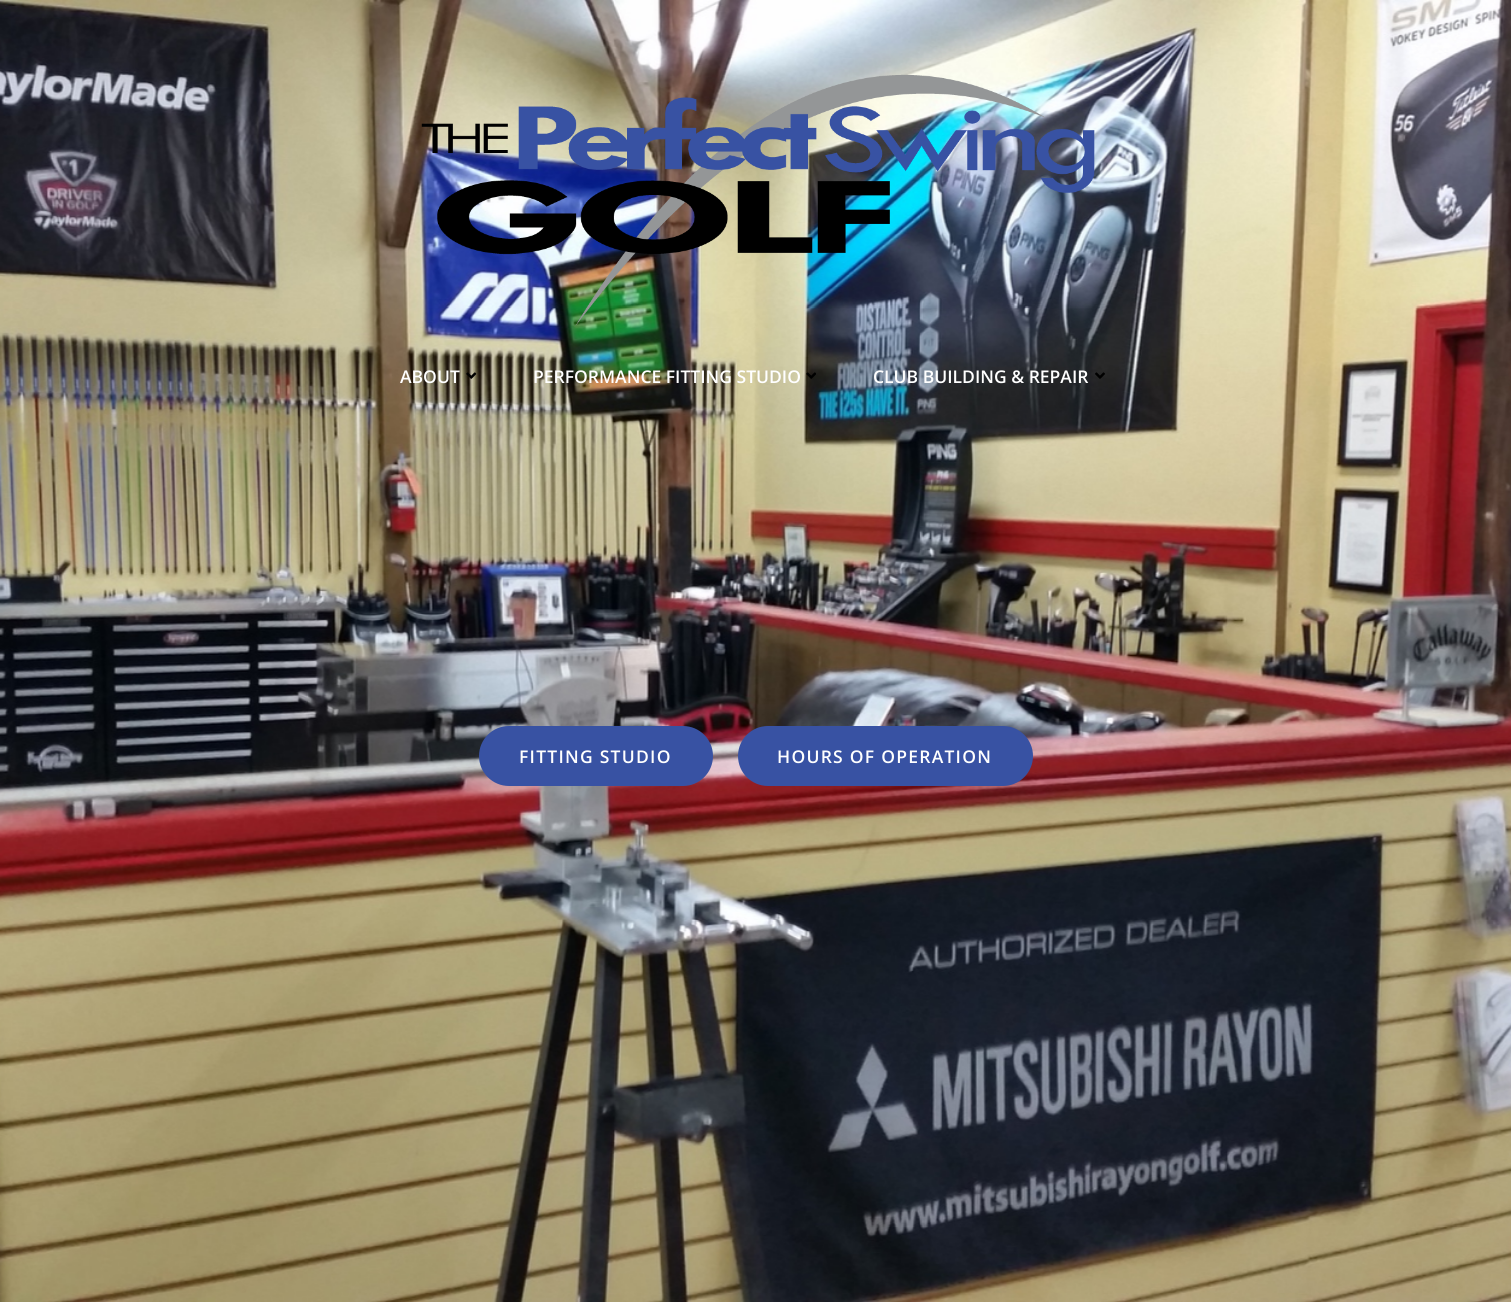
import math
import cairo

surface = cairo.ImageSurface(cairo.FORMAT_RGB24, 1511, 1302)
cr = cairo.Context(surface)
options = cairo.FontOptions()
options.set_hint_metrics(cairo.HINT_METRICS_OFF)
options.set_hint_style(cairo.HINT_STYLE_NONE)
cr.set_font_options(options)
cr.set_miter_limit(4)


def rgb(code):
    cr.set_source_rgb(*(v / 255 for v in bytes.fromhex(code[-6:])))


def tracked(x, y, s, letter, word):
    cr.move_to(x, y)
    for ch in s:
        cr.show_text(ch)
        cr.rel_move_to(letter + word * (ch == ' '), 0)


def rrect(x, y, w, h, r):
    cr.new_sub_path()
    for i, (u, v) in enumerate([(x + w - r, y + h - r), (x + r, y + h - r), (x + r, y + r), (x + w - r, y + r)]):
        cr.arc(u, v, r, i * math.pi / 2, (i + 1) * math.pi / 2)
    cr.close_path()


def image(path, x, y, w, h):
    cr.save()
    cr.set_source_surface(cairo.ImageSurface.create_from_png(path), x, y)
    cr.rectangle(x, y, w, h)
    cr.fill()
    cr.restore()


rgb("#ffffff")
cr.paint()
image("img/5.png", 0, 0, 1511, 1302)
image("img/1.png", 421, 74, 674, 252)
image("img/2.png", 466, 372, 11, 7)
image("img/3.png", 806, 372, 10, 7)
image("img/4.png", 1095, 372, 10, 7)
rgb("#3852a3")
rrect(480.5, 727.5, 231, 57, 28.5)
cr.fill_preserve()
cr.set_line_width(3)
cr.stroke()
rrect(739.5, 727.5, 292, 57, 28.5)
cr.fill_preserve()
cr.stroke()
cr.select_font_face("Open Sans SemiBold")
cr.set_font_size(17.5)
rgb("#ffffff")
for x, y, s in [
    (400, 383, "ABOUT"),
    (533, 383, "PERFORMANCE FITTING STUDIO"),
    (873, 383, "CLUB BUILDING & REPAIR"),
]:
    cr.move_to(x, y)
    cr.show_text(s)
tracked(519, 763, "FITTING STUDIO", 1.25, 0)
tracked(777, 763, "HOURS OF OPERATION", 1.25, 0)
surface.write_to_png("page.png")
